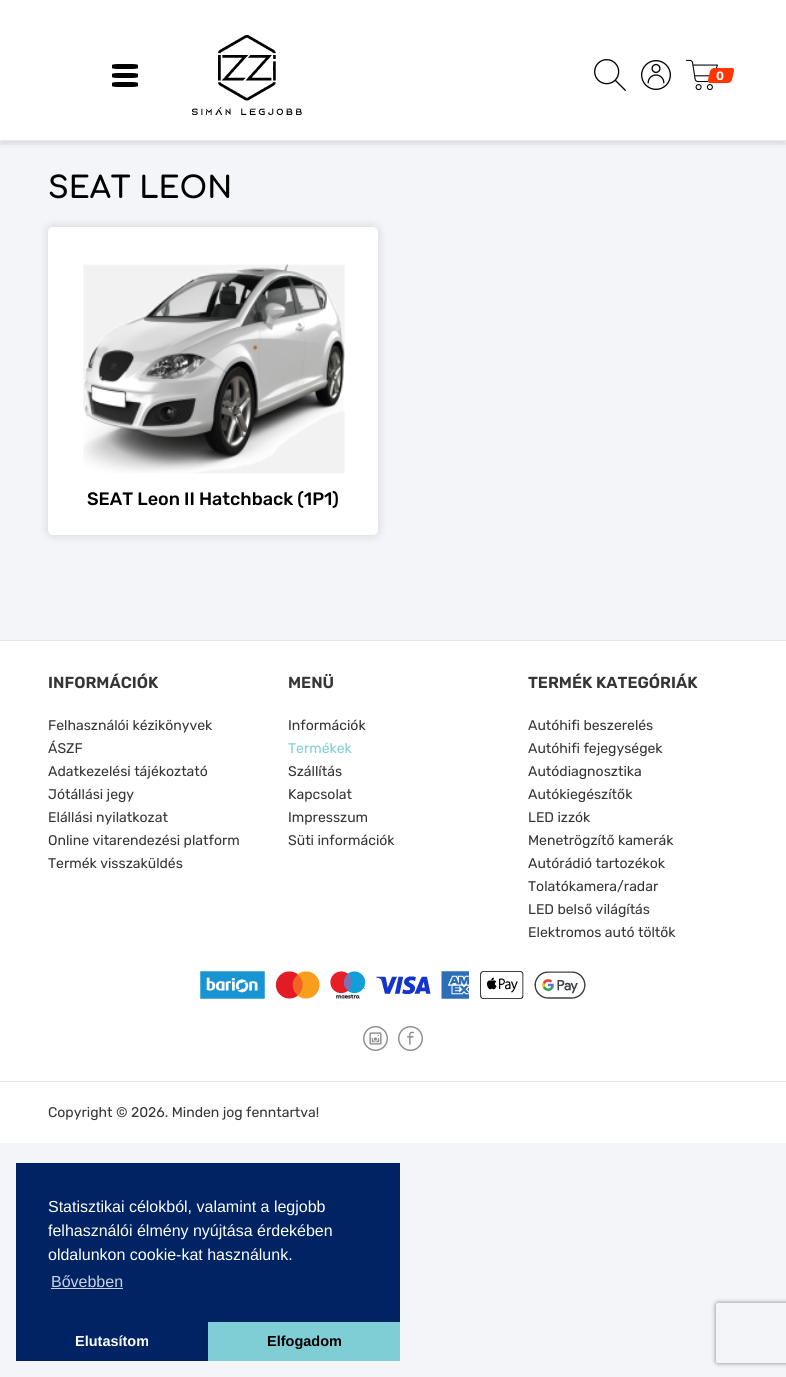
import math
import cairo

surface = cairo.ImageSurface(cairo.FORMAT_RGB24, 786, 1377)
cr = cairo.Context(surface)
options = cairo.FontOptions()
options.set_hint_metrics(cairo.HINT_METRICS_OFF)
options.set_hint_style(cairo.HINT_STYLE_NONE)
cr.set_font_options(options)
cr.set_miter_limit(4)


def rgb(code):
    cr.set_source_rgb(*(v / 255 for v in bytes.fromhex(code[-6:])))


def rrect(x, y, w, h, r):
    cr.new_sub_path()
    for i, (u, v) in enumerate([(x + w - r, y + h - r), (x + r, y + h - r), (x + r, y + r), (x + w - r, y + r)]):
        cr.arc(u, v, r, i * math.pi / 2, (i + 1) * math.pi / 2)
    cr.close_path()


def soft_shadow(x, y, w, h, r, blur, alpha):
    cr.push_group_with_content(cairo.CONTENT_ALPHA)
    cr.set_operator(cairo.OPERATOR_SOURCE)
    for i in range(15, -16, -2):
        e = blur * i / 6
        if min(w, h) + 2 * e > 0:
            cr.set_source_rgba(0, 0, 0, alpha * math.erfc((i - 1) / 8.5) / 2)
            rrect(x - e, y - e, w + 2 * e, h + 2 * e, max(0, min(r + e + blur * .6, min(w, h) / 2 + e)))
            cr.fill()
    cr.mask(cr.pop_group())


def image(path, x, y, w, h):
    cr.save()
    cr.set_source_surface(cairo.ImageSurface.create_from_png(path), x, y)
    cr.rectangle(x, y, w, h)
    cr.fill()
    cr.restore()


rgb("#f3f5f8")
cr.paint()
rgb("#000000")
soft_shadow(0, 4, 786, 141, 0, 2, 0.05)
rgb("#ffffff")
cr.rectangle(0, 0, 786, 140)
cr.fill()
cr.save()
cr.rectangle(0, 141, 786, 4)
cr.clip()
rgb("#000000")
soft_shadow(0, 4, 786, 141, 0, 2, 0.05)
cr.restore()
rgb("#e7e8e8")
cr.rectangle(0, 140, 786, 1)
cr.fill()
rgb("#000000")
cr.new_path()
cr.move_to(118.5, 73)
cr.line_to(131.5, 73)
cr.curve_to(135, 73, 138, 73.5, 138, 74)
cr.line_to(138, 77)
cr.curve_to(138, 77.5, 135, 78, 131.5, 78)
cr.line_to(118.5, 78)
cr.curve_to(115, 78, 112, 77.5, 112, 77)
cr.line_to(112, 74)
cr.curve_to(112, 73.5, 115, 73, 118.5, 73)
cr.close_path()
cr.move_to(118.5, 64)
cr.line_to(131.5, 64)
cr.curve_to(135, 64, 138, 64.5, 138, 65)
cr.line_to(138, 68)
cr.curve_to(138, 68.5, 135, 69, 131.5, 69)
cr.line_to(118.5, 69)
cr.curve_to(115, 69, 112, 68.5, 112, 68)
cr.line_to(112, 65)
cr.curve_to(112, 64.5, 115, 64, 118.5, 64)
cr.close_path()
cr.move_to(118.5, 82)
cr.line_to(131.5, 82)
cr.curve_to(135, 82, 138, 82.5, 138, 83)
cr.line_to(138, 86)
cr.curve_to(138, 86.5, 135, 87, 131.5, 87)
cr.line_to(118.5, 87)
cr.curve_to(115, 87, 112, 86.5, 112, 86)
cr.line_to(112, 83)
cr.curve_to(112, 82.5, 115, 82, 118.5, 82)
cr.close_path()
cr.fill()
image("img/1.png", 192, 35, 110, 80)
image("img/2.png", 594, 59, 32, 32)
image("img/3.png", 641, 60, 30, 30)
image("img/4.png", 686, 59, 32, 32)
rgb("#ff3400")
cr.new_path()
cr.move_to(714, 68)
cr.line_to(732, 68)
cr.curve_to(733.5, 68, 734.5, 69.5, 734, 71)
cr.line_to(732, 80)
cr.curve_to(731.5, 81.5, 729.5, 83, 728, 83)
cr.line_to(710, 83)
cr.curve_to(708.5, 83, 707.5, 81.5, 708, 80)
cr.line_to(710, 71)
cr.curve_to(710.5, 69.5, 712.5, 68, 714, 68)
cr.close_path()
cr.fill()
rgb("#000000")
soft_shadow(48, 227, 330, 308, 5, 5, 0.15)
rgb("#ffffff")
rrect(48, 227, 330, 308, 5)
cr.fill()
image("img/5.png", 83, 263, 262, 211)
for x, y, w, h, color in [
    (0, 641, 786, 502, "#ffffff"),
    (0, 640, 786, 1, "#e7e8e8"),
    (0, 1081, 786, 1, "#e7e8e8"),
]:
    rgb(color)
    cr.rectangle(x, y, w, h)
    cr.fill()
image("img/6.png", 200, 971, 386, 28)
image("img/7.png", 363, 1026, 25, 25)
image("img/8.png", 398, 1026, 25, 25)
for x, y, w, h, color in [
    (16, 1163, 384, 198, "#002364"),
    (51, 1288, 72, 1, "#ccd3e0"),
    (208, 1322, 192, 39, "#80ced5"),
]:
    rgb(color)
    cr.rectangle(x, y, w, h)
    cr.fill()
cr.save()
cr.set_fill_rule(cairo.FILL_RULE_EVEN_ODD)
cr.new_path()
cr.move_to(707, 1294)
cr.line_to(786, 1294)
cr.line_to(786, 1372)
cr.line_to(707, 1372)
cr.close_path()
cr.move_to(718, 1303)
cr.line_to(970, 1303)
cr.curve_to(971, 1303, 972, 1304, 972, 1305)
cr.line_to(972, 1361)
cr.curve_to(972, 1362, 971, 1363, 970, 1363)
cr.line_to(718, 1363)
cr.curve_to(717, 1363, 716, 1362, 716, 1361)
cr.line_to(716, 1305)
cr.curve_to(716, 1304, 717, 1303, 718, 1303)
cr.close_path()
cr.clip()
rgb("#808080")
soft_shadow(716, 1303, 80, 60, 2, 2.5, 1)
cr.restore()
cr.select_font_face("Rubik SemiBold")
cr.set_font_size(12)
rgb("#ffffff")
cr.move_to(716, 80)
cr.show_text("0")
cr.select_font_face("Comfortaa", cairo.FONT_SLANT_NORMAL, cairo.FONT_WEIGHT_BOLD)
cr.set_font_size(30)
rgb("#000000")
cr.move_to(48, 198)
cr.show_text("SEAT LEON")
cr.select_font_face("Rubik Medium")
cr.set_font_size(18)
cr.move_to(87, 505)
cr.show_text("SEAT Leon II Hatchback (1P1)")
cr.select_font_face("Rubik SemiBold")
cr.set_font_size(16)
rgb("#353535")
cr.move_to(48, 688)
cr.show_text("INFORMÁCIÓK")
cr.select_font_face("Rubik")
cr.set_font_size(14)
for x, y, s in [
    (48, 730, "Felhasználói kézikönyvek"),
    (48, 753, "ÁSZF"),
    (48, 776, "Adatkezelési tájékoztató"),
    (48, 799, "Jótállási jegy"),
    (48, 822, "Elállási nyilatkozat"),
    (48, 845, "Online vitarendezési platform"),
    (48, 868, "Termék visszaküldés"),
]:
    cr.move_to(x, y)
    cr.show_text(s)
cr.select_font_face("Rubik SemiBold")
cr.set_font_size(16)
cr.move_to(288, 688)
cr.show_text("MENÜ")
cr.select_font_face("Rubik")
cr.set_font_size(14)
cr.move_to(288, 730)
cr.show_text("Információk")
rgb("#80ced5")
cr.move_to(288, 753)
cr.show_text("Termékek")
rgb("#353535")
for x, y, s in [
    (288, 776, "Szállítás"),
    (288, 799, "Kapcsolat"),
    (288, 822, "Impresszum"),
    (288, 845, "Süti információk"),
]:
    cr.move_to(x, y)
    cr.show_text(s)
cr.select_font_face("Rubik SemiBold")
cr.set_font_size(16)
cr.move_to(528, 688)
cr.show_text("TERMÉK KATEGÓRIÁK")
cr.select_font_face("Rubik")
cr.set_font_size(14)
for x, y, s in [
    (528, 730, "Autóhifi beszerelés"),
    (528, 753, "Autóhifi fejegységek"),
    (528, 776, "Autódiagnosztika"),
    (528, 799, "Autókiegészítők"),
    (528, 822, "LED izzók"),
    (528, 845, "Menetrögzítő kamerák"),
    (528, 868, "Autórádió tartozékok"),
    (528, 891, "Tolatókamera/radar"),
    (528, 914, "LED belső világítás"),
    (528, 937, "Elektromos autó töltők"),
    (48, 1117, "Copyright © 2026. Minden jog fenntartva!"),
]:
    cr.move_to(x, y)
    cr.show_text(s)
cr.select_font_face("Liberation Sans")
cr.set_font_size(16)
rgb("#ffffff")
for x, y, s in [
    (48, 1212, "Statisztikai célokból, valamint a legjobb"),
    (48, 1236, "felhasználói élmény nyújtása érdekében"),
    (48, 1260, "oldalunkon cookie-kat használunk."),
]:
    cr.move_to(x, y)
    cr.show_text(s)
rgb("#ccd3e0")
cr.move_to(51, 1287)
cr.show_text("Bővebben")
cr.select_font_face("Liberation Sans", cairo.FONT_SLANT_NORMAL, cairo.FONT_WEIGHT_BOLD)
cr.set_font_size(14.5)
rgb("#ffffff")
cr.move_to(75, 1346)
cr.show_text("Elutasítom")
rgb("#000000")
cr.move_to(267, 1346)
cr.show_text("Elfogadom")
surface.write_to_png("page.png")
